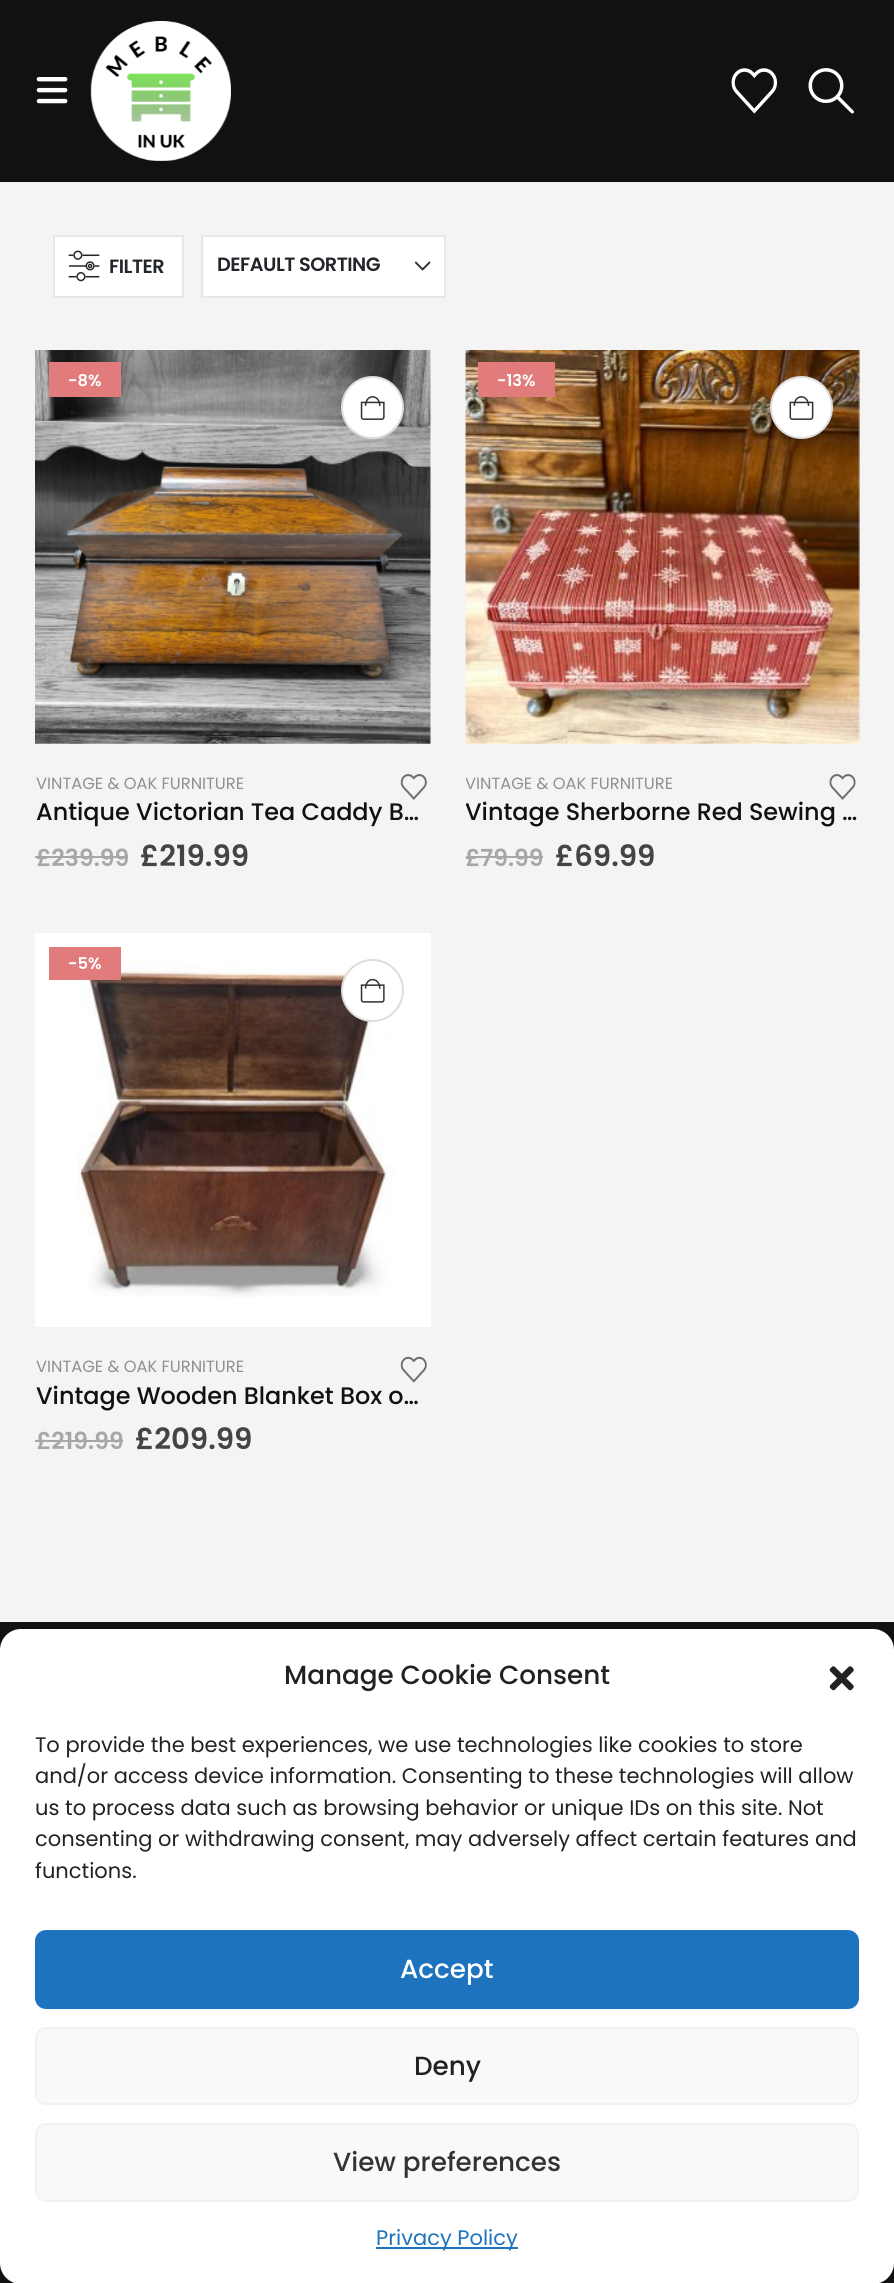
import math
import cairo

surface = cairo.ImageSurface(cairo.FORMAT_RGB24, 894, 2283)
cr = cairo.Context(surface)
options = cairo.FontOptions()
options.set_hint_metrics(cairo.HINT_METRICS_OFF)
options.set_hint_style(cairo.HINT_STYLE_NONE)
cr.set_font_options(options)
cr.set_miter_limit(4)


def rgb(code):
    cr.set_source_rgb(*(v / 255 for v in bytes.fromhex(code[-6:])))


def tracked(x, y, s, letter, word):
    cr.move_to(x, y)
    for ch in s:
        cr.show_text(ch)
        cr.rel_move_to(letter + word * (ch == ' '), 0)


def rrect(x, y, w, h, r):
    cr.new_sub_path()
    for i, (u, v) in enumerate([(x + w - r, y + h - r), (x + r, y + h - r), (x + r, y + r), (x + w - r, y + r)]):
        cr.arc(u, v, r, i * math.pi / 2, (i + 1) * math.pi / 2)
    cr.close_path()


def image(path, x, y, w, h):
    cr.save()
    cr.set_source_surface(cairo.ImageSurface.create_from_png(path), x, y)
    cr.rectangle(x, y, w, h)
    cr.fill()
    cr.restore()


rgb("#f4f4f4")
cr.paint()
rgb("#111111")
cr.rectangle(0, 0, 894, 182)
cr.fill()
image("img/1.png", 36, 77, 32, 27)
image("img/2.png", 90, 21, 141, 140)
image("img/3.png", 731, 68, 47, 46)
image("img/4.png", 808, 68, 46, 46)
rgb("#ffffff")
cr.rectangle(54, 236, 129, 61)
cr.fill_preserve()
rgb("#e7e7e7")
cr.stroke()
image("img/5.png", 68, 250, 32, 32)
rgb("#ffffff")
cr.rectangle(203, 237, 241, 59)
cr.fill()
image("img/6.png", 414, 261, 17, 10)
cr.rectangle(202, 236, 243, 61)
rgb("#e7e7e7")
cr.stroke()
rgb("#ffffff")
cr.rectangle(35, 350, 396, 394)
cr.fill()
image("img/7.png", 35, 350, 396, 394)
rgb("#e27c7c")
cr.rectangle(49, 362, 72, 35)
cr.fill()
rgb("#ffffff")
cr.arc(372.5, 407.5, 30.5, 0, 2 * math.pi)
cr.fill_preserve()
rgb("#dddddd")
cr.stroke()
image("img/8.png", 360, 396, 25, 24)
image("img/9.png", 400, 774, 27, 26)
rgb("#a7a7a7")
cr.rectangle(35, 856, 93, 2)
cr.fill()
rgb("#ffffff")
cr.rectangle(466, 350, 393, 394)
cr.fill()
image("img/10.png", 465, 350, 395, 394)
rgb("#e27c7c")
cr.rectangle(478, 362, 77, 35)
cr.fill()
rgb("#ffffff")
cr.arc(801.5, 407.5, 30.5, 0, 2 * math.pi)
cr.fill_preserve()
rgb("#dddddd")
cr.stroke()
image("img/11.png", 789, 396, 25, 24)
image("img/12.png", 829, 774, 27, 26)
rgb("#a7a7a7")
cr.rectangle(466, 856, 77, 2)
cr.fill()
rgb("#ffffff")
cr.rectangle(35, 933, 396, 394)
cr.fill()
image("img/13.png", 77, 958, 317, 339)
rgb("#e27c7c")
cr.rectangle(49, 947, 72, 33)
cr.fill()
rgb("#ffffff")
cr.arc(372.5, 990.5, 30.5, 0, 2 * math.pi)
cr.fill_preserve()
rgb("#dddddd")
cr.stroke()
image("img/14.png", 360, 978, 25, 25)
image("img/15.png", 400, 1356, 27, 27)
rgb("#a7a7a7")
cr.rectangle(35, 1440, 88, 2)
cr.fill()
rgb("#111111")
cr.rectangle(0, 1622, 894, 661)
cr.fill()
rgb("#ffffff")
rrect(0, 1629, 894, 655, 21)
cr.fill()
image("img/16.png", 829, 1666, 25, 25)
rgb("#1e73be")
rrect(36, 1931, 822, 77, 10)
cr.fill_preserve()
cr.stroke()
rgb("#f9f9f9")
rrect(36, 2028, 822, 76, 10)
cr.fill_preserve()
rgb("#f2f2f2")
cr.stroke()
rgb("#f9f9f9")
rrect(36, 2124, 822, 77, 10)
cr.fill_preserve()
rgb("#f2f2f2")
cr.stroke()
rgb("#1e73be")
cr.rectangle(376, 2247, 142, 2)
cr.fill()
cr.select_font_face("Poppins SemiBold")
cr.set_font_size(19.25)
rgb("#222529")
tracked(109, 273, "FILTER", -0.5, 0)
tracked(217, 271, "DEFAULT SORTING", -0.5, 0)
cr.set_font_size(16.25)
rgb("#ffffff")
cr.move_to(68, 386)
cr.show_text("-8%")
cr.select_font_face("Poppins")
rgb("#909090")
cr.move_to(36, 789)
cr.show_text("VINTAGE & OAK FURNITURE")
cr.select_font_face("Poppins Medium")
cr.set_font_size(23.9)
rgb("#111111")
cr.move_to(36, 820)
cr.show_text("Antique Victorian Tea Caddy B…")
cr.select_font_face("Poppins SemiBold")
cr.set_font_size(23.5)
rgb("#a7a7a7")
cr.move_to(36, 866)
cr.show_text("£239.99")
cr.set_font_size(29.25)
rgb("#444444")
cr.move_to(140, 866)
cr.show_text("£219.99")
cr.set_font_size(16.25)
rgb("#ffffff")
cr.move_to(497, 386)
cr.show_text("-13%")
cr.save()
cr.rectangle(466, 770, 343, 28)
cr.clip()
cr.select_font_face("Poppins")
rgb("#909090")
cr.move_to(465, 789)
cr.show_text("VINTAGE & OAK FURNITURE")
cr.restore()
cr.save()
cr.rectangle(466, 798, 393, 32)
cr.clip()
cr.select_font_face("Poppins Medium")
cr.set_font_size(23.9)
rgb("#111111")
cr.move_to(465, 820)
cr.show_text("Vintage Sherborne Red Sewing …")
cr.restore()
cr.set_font_size(23.5)
rgb("#a7a7a7")
cr.move_to(465, 866)
cr.show_text("£79.99")
cr.set_font_size(29.25)
rgb("#444444")
cr.move_to(555, 866)
cr.show_text("£69.99")
cr.set_font_size(16.25)
rgb("#ffffff")
cr.move_to(68, 969)
cr.show_text("-5%")
cr.select_font_face("Poppins")
rgb("#909090")
cr.move_to(36, 1372)
cr.show_text("VINTAGE & OAK FURNITURE")
cr.select_font_face("Poppins Medium")
cr.set_font_size(23.9)
rgb("#111111")
cr.move_to(36, 1404)
cr.show_text("Vintage Wooden Blanket Box o…")
cr.select_font_face("Poppins SemiBold")
cr.set_font_size(23.5)
rgb("#a7a7a7")
cr.move_to(36, 1449)
cr.show_text("£219.99")
cr.set_font_size(29.25)
rgb("#444444")
cr.move_to(135, 1449)
cr.show_text("£209.99")
cr.select_font_face("Poppins Medium")
cr.set_font_size(26.25)
rgb("#222222")
cr.move_to(284, 1684)
cr.show_text("Manage Cookie Consent")
cr.select_font_face("Poppins")
cr.set_font_size(21)
for x, y, s in [
    (35, 1752, "To provide the best experiences, we use technologies like cookies to store"),
    (35, 1783, "and/or access device information. Consenting to these technologies will allow"),
    (35, 1815, "us to process data such as browsing behavior or unique IDs on this site. Not"),
    (35, 1846, "consenting or withdrawing consent, may adversely affect certain features and"),
    (35, 1878, "functions."),
]:
    cr.move_to(x, y)
    cr.show_text(s)
cr.select_font_face("Poppins Medium")
cr.set_font_size(26.25)
rgb("#ffffff")
cr.move_to(400, 1978)
cr.show_text("Accept")
rgb("#222222")
cr.move_to(414, 2075)
cr.show_text("Deny")
rgb("#333333")
cr.move_to(333, 2171)
cr.show_text("View preferences")
cr.select_font_face("Poppins")
cr.set_font_size(21)
rgb("#1e73be")
cr.move_to(376, 2245)
cr.show_text("Privacy Policy")
surface.write_to_png("page.png")
